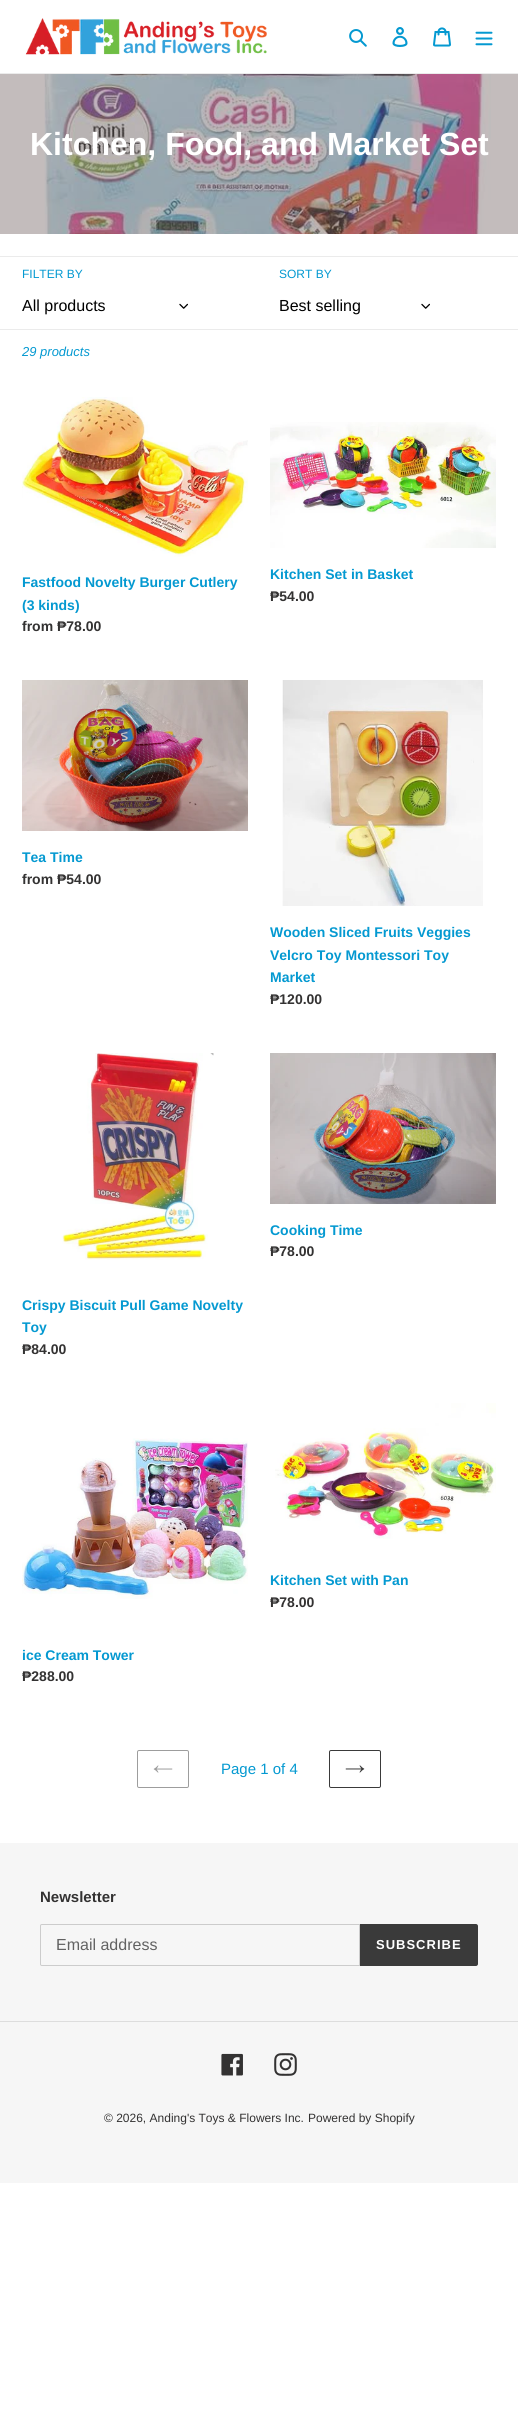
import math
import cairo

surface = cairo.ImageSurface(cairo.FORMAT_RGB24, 518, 2435)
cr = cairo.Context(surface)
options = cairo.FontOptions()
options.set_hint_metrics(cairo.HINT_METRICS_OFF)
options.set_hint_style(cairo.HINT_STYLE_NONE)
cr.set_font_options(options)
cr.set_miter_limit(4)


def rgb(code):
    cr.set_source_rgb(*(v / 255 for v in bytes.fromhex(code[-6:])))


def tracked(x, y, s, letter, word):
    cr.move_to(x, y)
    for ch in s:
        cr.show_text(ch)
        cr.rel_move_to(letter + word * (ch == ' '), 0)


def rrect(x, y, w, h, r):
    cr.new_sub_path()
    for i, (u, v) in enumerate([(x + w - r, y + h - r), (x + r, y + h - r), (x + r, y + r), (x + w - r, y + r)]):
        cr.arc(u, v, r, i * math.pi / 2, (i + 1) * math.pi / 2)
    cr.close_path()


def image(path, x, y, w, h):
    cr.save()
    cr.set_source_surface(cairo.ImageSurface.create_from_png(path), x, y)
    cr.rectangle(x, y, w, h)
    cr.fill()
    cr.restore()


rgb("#ffffff")
cr.paint()
rgb("#c3bcbc")
cr.rectangle(0, 74, 518, 160)
cr.fill()
rgb("#ebebeb")
cr.rectangle(0, 73, 518, 1)
cr.fill()
image("img/1.png", 25, 18, 242, 37)
image("img/2.png", 349, 29, 18, 18)
image("img/3.png", 392, 27, 16, 20)
image("img/4.png", 433, 27, 18, 20)
image("img/5.png", 475, 31, 18, 15)
image("img/6.png", 44, 74, 447, 160)
cr.rectangle(0, 256, 518, 1)
cr.fill()
image("img/7.png", 179, 303, 9, 6)
image("img/7.png", 421, 303, 9, 6)
cr.rectangle(0, 329, 518, 1)
cr.fill()
image("img/8.png", 22, 397, 226, 160)
image("img/9.png", 270, 422, 226, 126)
image("img/10.png", 22, 680, 226, 151)
image("img/11.png", 282, 680, 201, 226)
image("img/12.png", 270, 1053, 226, 151)
image("img/13.png", 62, 1053, 152, 207)
image("img/14.png", 275, 1403, 221, 136)
image("img/15.png", 22, 1438, 226, 161)
rrect(137.5, 1750.5, 51, 37, 1.5)
rgb("#9d9d9d")
cr.set_line_width(1)
cr.stroke()
image("img/16.png", 153, 1765, 20, 8)
rrect(329.5, 1750.5, 51, 37, 1.5)
rgb("#3a3a3a")
cr.stroke()
image("img/17.png", 345, 1765, 20, 8)
rgb("#f6f6f6")
cr.rectangle(0, 1843, 518, 340)
cr.fill()
cr.new_path()
cr.move_to(42, 1924.5)
cr.line_to(359.5, 1924.5)
cr.line_to(359.5, 1965.5)
cr.line_to(42, 1965.5)
cr.curve_to(41, 1965.5, 40.5, 1965, 40.5, 1964)
cr.line_to(40.5, 1926)
cr.curve_to(40.5, 1925, 41, 1924.5, 42, 1924.5)
cr.close_path()
rgb("#cccccc")
cr.stroke()
rgb("#3a3a3a")
cr.new_path()
cr.move_to(360, 1924)
cr.line_to(476, 1924)
cr.curve_to(477, 1924, 478, 1925, 478, 1926)
cr.line_to(478, 1964)
cr.curve_to(478, 1965, 477, 1966, 476, 1966)
cr.line_to(360, 1966)
cr.close_path()
cr.fill()
rgb("#dddddd")
cr.rectangle(0, 2021, 518, 1)
cr.fill()
image("img/18.png", 221, 2053, 22, 23)
image("img/19.png", 274, 2053, 23, 23)
cr.select_font_face("Liberation Sans", cairo.FONT_SLANT_NORMAL, cairo.FONT_WEIGHT_BOLD)
cr.set_font_size(32)
rgb("#ffffff")
cr.move_to(30, 155)
cr.show_text("Kitchen, Food, and Market Set")
cr.select_font_face("Liberation Sans")
cr.set_font_size(12)
rgb("#0499d1")
cr.move_to(22, 278)
cr.show_text("FILTER BY")
cr.set_font_size(16)
rgb("#000000")
cr.move_to(22, 311)
cr.show_text("All products")
cr.set_font_size(12)
rgb("#0499d1")
cr.move_to(279, 278)
cr.show_text("SORT BY")
cr.set_font_size(16)
rgb("#000000")
cr.move_to(279, 311)
cr.show_text("Best selling")
cr.select_font_face("Liberation Sans", cairo.FONT_SLANT_ITALIC)
cr.set_font_size(13)
rgb("#0499d1")
cr.move_to(22, 356)
cr.show_text("29 products")
cr.select_font_face("Liberation Sans", cairo.FONT_SLANT_NORMAL, cairo.FONT_WEIGHT_BOLD)
cr.set_font_size(14)
cr.move_to(22, 587)
cr.show_text("Fastfood Novelty Burger Cutlery")
cr.move_to(22, 610)
cr.show_text("(3 kinds)")
rgb("#333232")
cr.move_to(22, 631)
cr.show_text("from ₱78.00")
rgb("#0499d1")
cr.move_to(270, 579)
cr.show_text("Kitchen Set in Basket")
rgb("#333232")
cr.move_to(270, 601)
cr.show_text("₱54.00")
rgb("#0499d1")
cr.move_to(22, 862)
cr.show_text("Tea Time")
rgb("#333232")
cr.move_to(22, 884)
cr.show_text("from ₱54.00")
rgb("#0499d1")
for x, y, s in [
    (270, 937, "Wooden Sliced Fruits Veggies"),
    (270, 960, "Velcro Toy Montessori Toy"),
    (270, 982, "Market"),
]:
    cr.move_to(x, y)
    cr.show_text(s)
rgb("#333232")
cr.move_to(270, 1004)
cr.show_text("₱120.00")
rgb("#0499d1")
cr.move_to(270, 1235)
cr.show_text("Cooking Time")
rgb("#333232")
cr.move_to(270, 1256)
cr.show_text("₱78.00")
rgb("#0499d1")
cr.move_to(22, 1310)
cr.show_text("Crispy Biscuit Pull Game Novelty")
cr.move_to(22, 1332)
cr.show_text("Toy")
rgb("#333232")
cr.move_to(22, 1354)
cr.show_text("₱84.00")
rgb("#0499d1")
cr.move_to(270, 1585)
cr.show_text("Kitchen Set with Pan")
rgb("#333232")
cr.move_to(270, 1607)
cr.show_text("₱78.00")
rgb("#0499d1")
cr.move_to(22, 1660)
cr.show_text("ice Cream Tower")
rgb("#333232")
cr.move_to(22, 1681)
cr.show_text("₱288.00")
cr.select_font_face("Liberation Sans")
cr.set_font_size(15)
rgb("#0499d1")
cr.move_to(221, 1774)
cr.show_text("Page 1 of 4")
cr.select_font_face("Liberation Sans", cairo.FONT_SLANT_NORMAL, cairo.FONT_WEIGHT_BOLD)
rgb("#333232")
cr.move_to(40, 1902)
cr.show_text("Newsletter")
cr.select_font_face("Liberation Sans")
cr.set_font_size(16)
rgb("#626262")
cr.move_to(56, 1950)
cr.show_text("Email address")
cr.select_font_face("Liberation Sans", cairo.FONT_SLANT_NORMAL, cairo.FONT_WEIGHT_BOLD)
cr.set_font_size(13)
rgb("#ffffff")
tracked(376, 1949, "SUBSCRIBE", 1, 0)
cr.select_font_face("Liberation Sans")
cr.set_font_size(12)
rgb("#333232")
cr.move_to(104, 2122)
cr.show_text("© 2026, Anding's Toys & Flowers Inc.")
cr.move_to(308, 2122)
cr.show_text("Powered by Shopify")
surface.write_to_png("page.png")
